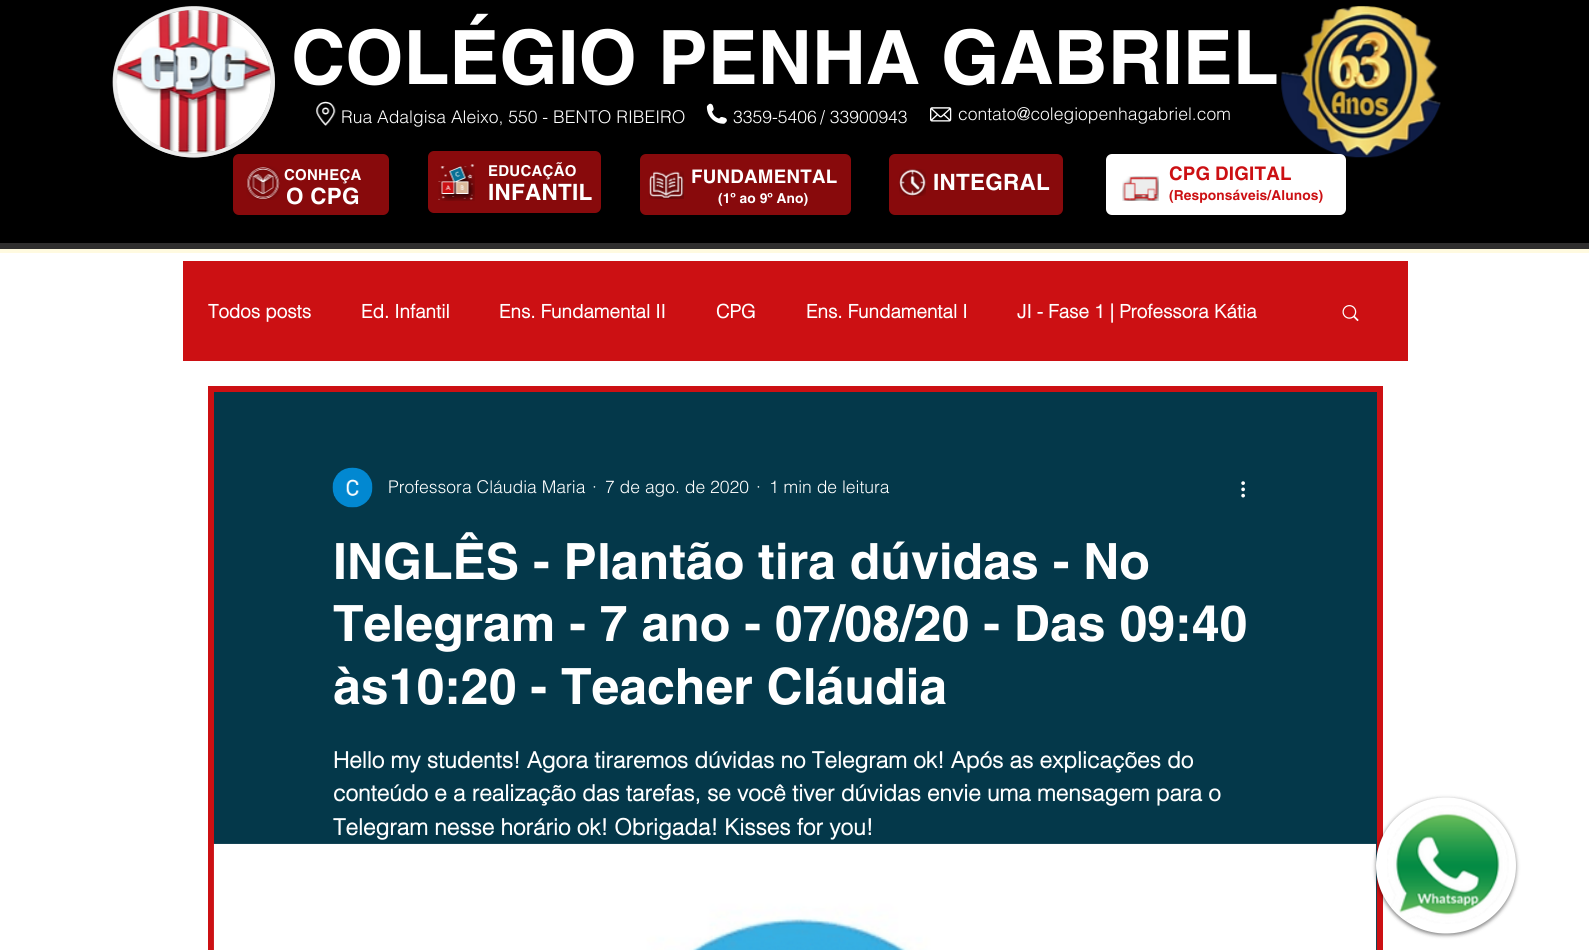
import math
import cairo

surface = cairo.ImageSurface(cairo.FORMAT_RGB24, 1589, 950)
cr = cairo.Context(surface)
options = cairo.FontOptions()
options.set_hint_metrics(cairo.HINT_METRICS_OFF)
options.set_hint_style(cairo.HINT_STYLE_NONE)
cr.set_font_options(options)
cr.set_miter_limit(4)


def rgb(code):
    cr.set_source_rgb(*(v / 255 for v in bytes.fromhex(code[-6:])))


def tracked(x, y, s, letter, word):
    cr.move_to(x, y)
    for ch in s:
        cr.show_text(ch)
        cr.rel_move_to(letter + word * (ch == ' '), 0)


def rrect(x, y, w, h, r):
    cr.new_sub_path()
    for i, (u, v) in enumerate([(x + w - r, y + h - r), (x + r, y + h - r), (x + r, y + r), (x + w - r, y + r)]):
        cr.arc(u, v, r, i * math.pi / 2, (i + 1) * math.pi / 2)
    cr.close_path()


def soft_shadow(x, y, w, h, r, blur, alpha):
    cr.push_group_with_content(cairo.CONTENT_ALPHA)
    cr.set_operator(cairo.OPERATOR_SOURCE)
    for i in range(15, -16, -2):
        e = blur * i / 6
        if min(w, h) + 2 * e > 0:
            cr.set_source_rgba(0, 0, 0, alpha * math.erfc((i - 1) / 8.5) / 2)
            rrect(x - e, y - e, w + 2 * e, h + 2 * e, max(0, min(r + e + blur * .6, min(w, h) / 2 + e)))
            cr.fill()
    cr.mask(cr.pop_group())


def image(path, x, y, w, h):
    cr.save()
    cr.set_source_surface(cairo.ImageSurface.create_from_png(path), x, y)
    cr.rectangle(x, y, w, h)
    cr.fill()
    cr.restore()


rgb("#ffffff")
cr.paint()
rgb("#2f2e2e")
cr.rectangle(0, 243, 1589, 6)
cr.fill()
rgb("#000000")
cr.rectangle(0, 0, 1589, 243)
cr.fill()
rgb("#bababa")
cr.new_path()
cr.move_to(194, 6.5)
cr.curve_to(238.5, 6.5, 275, 40.5, 275, 82)
cr.curve_to(275, 123.5, 238.5, 157.5, 194, 157.5)
cr.curve_to(149.5, 157.5, 113, 123.5, 113, 82)
cr.curve_to(113, 40.5, 149.5, 6.5, 194, 6.5)
cr.close_path()
cr.fill()
cr.new_path()
cr.move_to(194, 8)
cr.curve_to(237.5, 8, 273, 41, 273, 82)
cr.curve_to(273, 122.5, 237.5, 155.5, 194, 155.5)
cr.curve_to(150, 155.5, 114.5, 122.5, 114.5, 82)
cr.curve_to(114.5, 41, 150, 8, 194, 8)
cr.close_path()
cr.set_source_rgba(1, 1, 1, 0.73)
cr.set_line_width(3.8)
cr.stroke()
image("img/1.png", 116, 10, 156, 144)
image("img/2.png", 1281, 6, 160, 152)
image("img/3.png", 316, 101, 20, 25)
image("img/4.png", 706, 103, 21, 21)
image("img/5.png", 930, 107, 22, 15)
rgb("#880a0c")
rrect(233, 154, 156, 61, 6)
cr.fill()
image("img/6.png", 246, 166, 34, 34)
rrect(428, 151, 173, 62, 6)
cr.fill()
image("img/7.png", 438, 164, 37, 37)
rrect(640, 154, 211, 61, 6)
cr.fill()
image("img/8.png", 649, 171, 35, 28)
rrect(889, 154, 174, 61, 6)
cr.fill()
image("img/9.png", 899, 169, 27, 27)
rgb("#ffffff")
rrect(1106, 154, 240, 61, 6)
cr.fill()
image("img/10.png", 1122, 176, 37, 25)
rgb("#fffae0")
cr.rectangle(0, 249, 1589, 4)
cr.fill()
rgb("#cc1013")
cr.rectangle(183, 261, 1225, 100)
cr.fill()
image("img/11.png", 1342, 305, 17, 17)
rgb("#04384a")
cr.rectangle(211, 389, 1169, 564)
cr.fill_preserve()
rgb("#cc1013")
cr.set_line_width(6)
cr.stroke()
image("img/12.png", 332, 467, 41, 41)
image("img/13.png", 1241, 481, 4, 17)
image("img/14.png", 213, 843, 1164, 107)
rgb("#000000")
soft_shadow(1376, 799, 140, 136, 68, 2, 0.5)
rgb("#ffffff")
cr.new_path()
cr.move_to(1446, 797.5)
cr.curve_to(1484.5, 797.5, 1516, 828, 1516, 865.5)
cr.curve_to(1516, 903, 1484.5, 933.5, 1446, 933.5)
cr.curve_to(1407.5, 933.5, 1376, 903, 1376, 865.5)
cr.curve_to(1376, 828, 1407.5, 797.5, 1446, 797.5)
cr.close_path()
cr.fill()
image("img/15.png", 1387, 805, 122, 119)
cr.select_font_face("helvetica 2", cairo.FONT_SLANT_NORMAL, cairo.FONT_WEIGHT_BOLD)
cr.set_font_size(75)
cr.move_to(291, 84)
cr.show_text("COLÉGIO PENHA GABRIEL")
cr.select_font_face("helvetica Light")
cr.set_font_size(17.5)
for x, y, s in [
    (341, 123, "Rua Adalgisa Aleixo, 550 - BENTO RIBEIRO"),
    (733, 123, "3359-5406"),
    (820, 123, "/ 33900943"),
    (958, 120, "contato@colegiopenhagabriel.com"),
]:
    cr.move_to(x, y)
    cr.show_text(s)
cr.select_font_face("helvetica 2", cairo.FONT_SLANT_NORMAL, cairo.FONT_WEIGHT_BOLD)
cr.set_font_size(15)
tracked(284, 180, "CONHEÇA", 0.25, 0)
cr.set_font_size(22.5)
tracked(286, 204, "O CPG", 0.25, 0)
cr.set_font_size(15)
tracked(488, 176, "EDUCAÇÃO", 0.25, 0)
cr.set_font_size(22.5)
tracked(488, 200, "INFANTIL", 0.25, 0)
cr.set_font_size(18.75)
tracked(691, 183, "FUNDAMENTAL", 0.25, 0)
cr.set_font_size(13.75)
tracked(718, 203, "(1º ao 9º Ano)", 0.1, 0)
cr.set_font_size(22.5)
tracked(933, 190, "INTEGRAL", 0.25, 0)
cr.set_font_size(18.75)
rgb("#cc1013")
tracked(1169, 180, "CPG", 0.25, 0)
tracked(1215, 180, "DIGITAL", 0.25, 0)
cr.set_font_size(13.75)
tracked(1169, 200, "(Responsáveis/Alunos)", 0.1, 0)
cr.select_font_face("helvetica", cairo.FONT_SLANT_NORMAL, cairo.FONT_WEIGHT_BOLD)
cr.set_font_size(18.75)
rgb("#ffffff")
for x, y, s in [
    (208, 318, "Todos posts"),
    (361, 318, "Ed. Infantil"),
    (499, 318, "Ens. Fundamental II"),
    (716, 318, "CPG"),
    (806, 318, "Ens. Fundamental I"),
    (1017, 318, "JI - Fase 1 | Professora Kátia"),
]:
    cr.move_to(x, y)
    cr.show_text(s)
cr.select_font_face("helvetica Light")
cr.set_font_size(17.5)
for x, y, s in [
    (388, 493, "Professora Cláudia Maria"),
    (592, 493, "·"),
    (605, 493, "7 de ago. de 2020"),
    (756, 493, "·"),
    (769, 493, "1 min de leitura"),
]:
    cr.move_to(x, y)
    cr.show_text(s)
cr.select_font_face("helvetica 2", cairo.FONT_SLANT_NORMAL, cairo.FONT_WEIGHT_BOLD)
cr.set_font_size(50)
for x, y, s in [
    (333, 579, "INGLÊS - Plantão tira dúvidas - No"),
    (333, 641, "Telegram - 7 ano - 07/08/20 - Das 09:40"),
    (333, 704, "às10:20 - Teacher Cláudia"),
]:
    cr.move_to(x, y)
    cr.show_text(s)
cr.select_font_face("helvetica", cairo.FONT_SLANT_NORMAL, cairo.FONT_WEIGHT_BOLD)
cr.set_font_size(22.5)
for x, y, s in [
    (333, 768, "Hello my students! Agora tiraremos dúvidas no Telegram ok! Após as explicações do"),
    (333, 801, "conteúdo e a realização das tarefas, se você tiver dúvidas envie uma mensagem para o"),
    (333, 835, "Telegram nesse horário ok! Obrigada! Kisses for you!"),
]:
    cr.move_to(x, y)
    cr.show_text(s)
surface.write_to_png("page.png")
